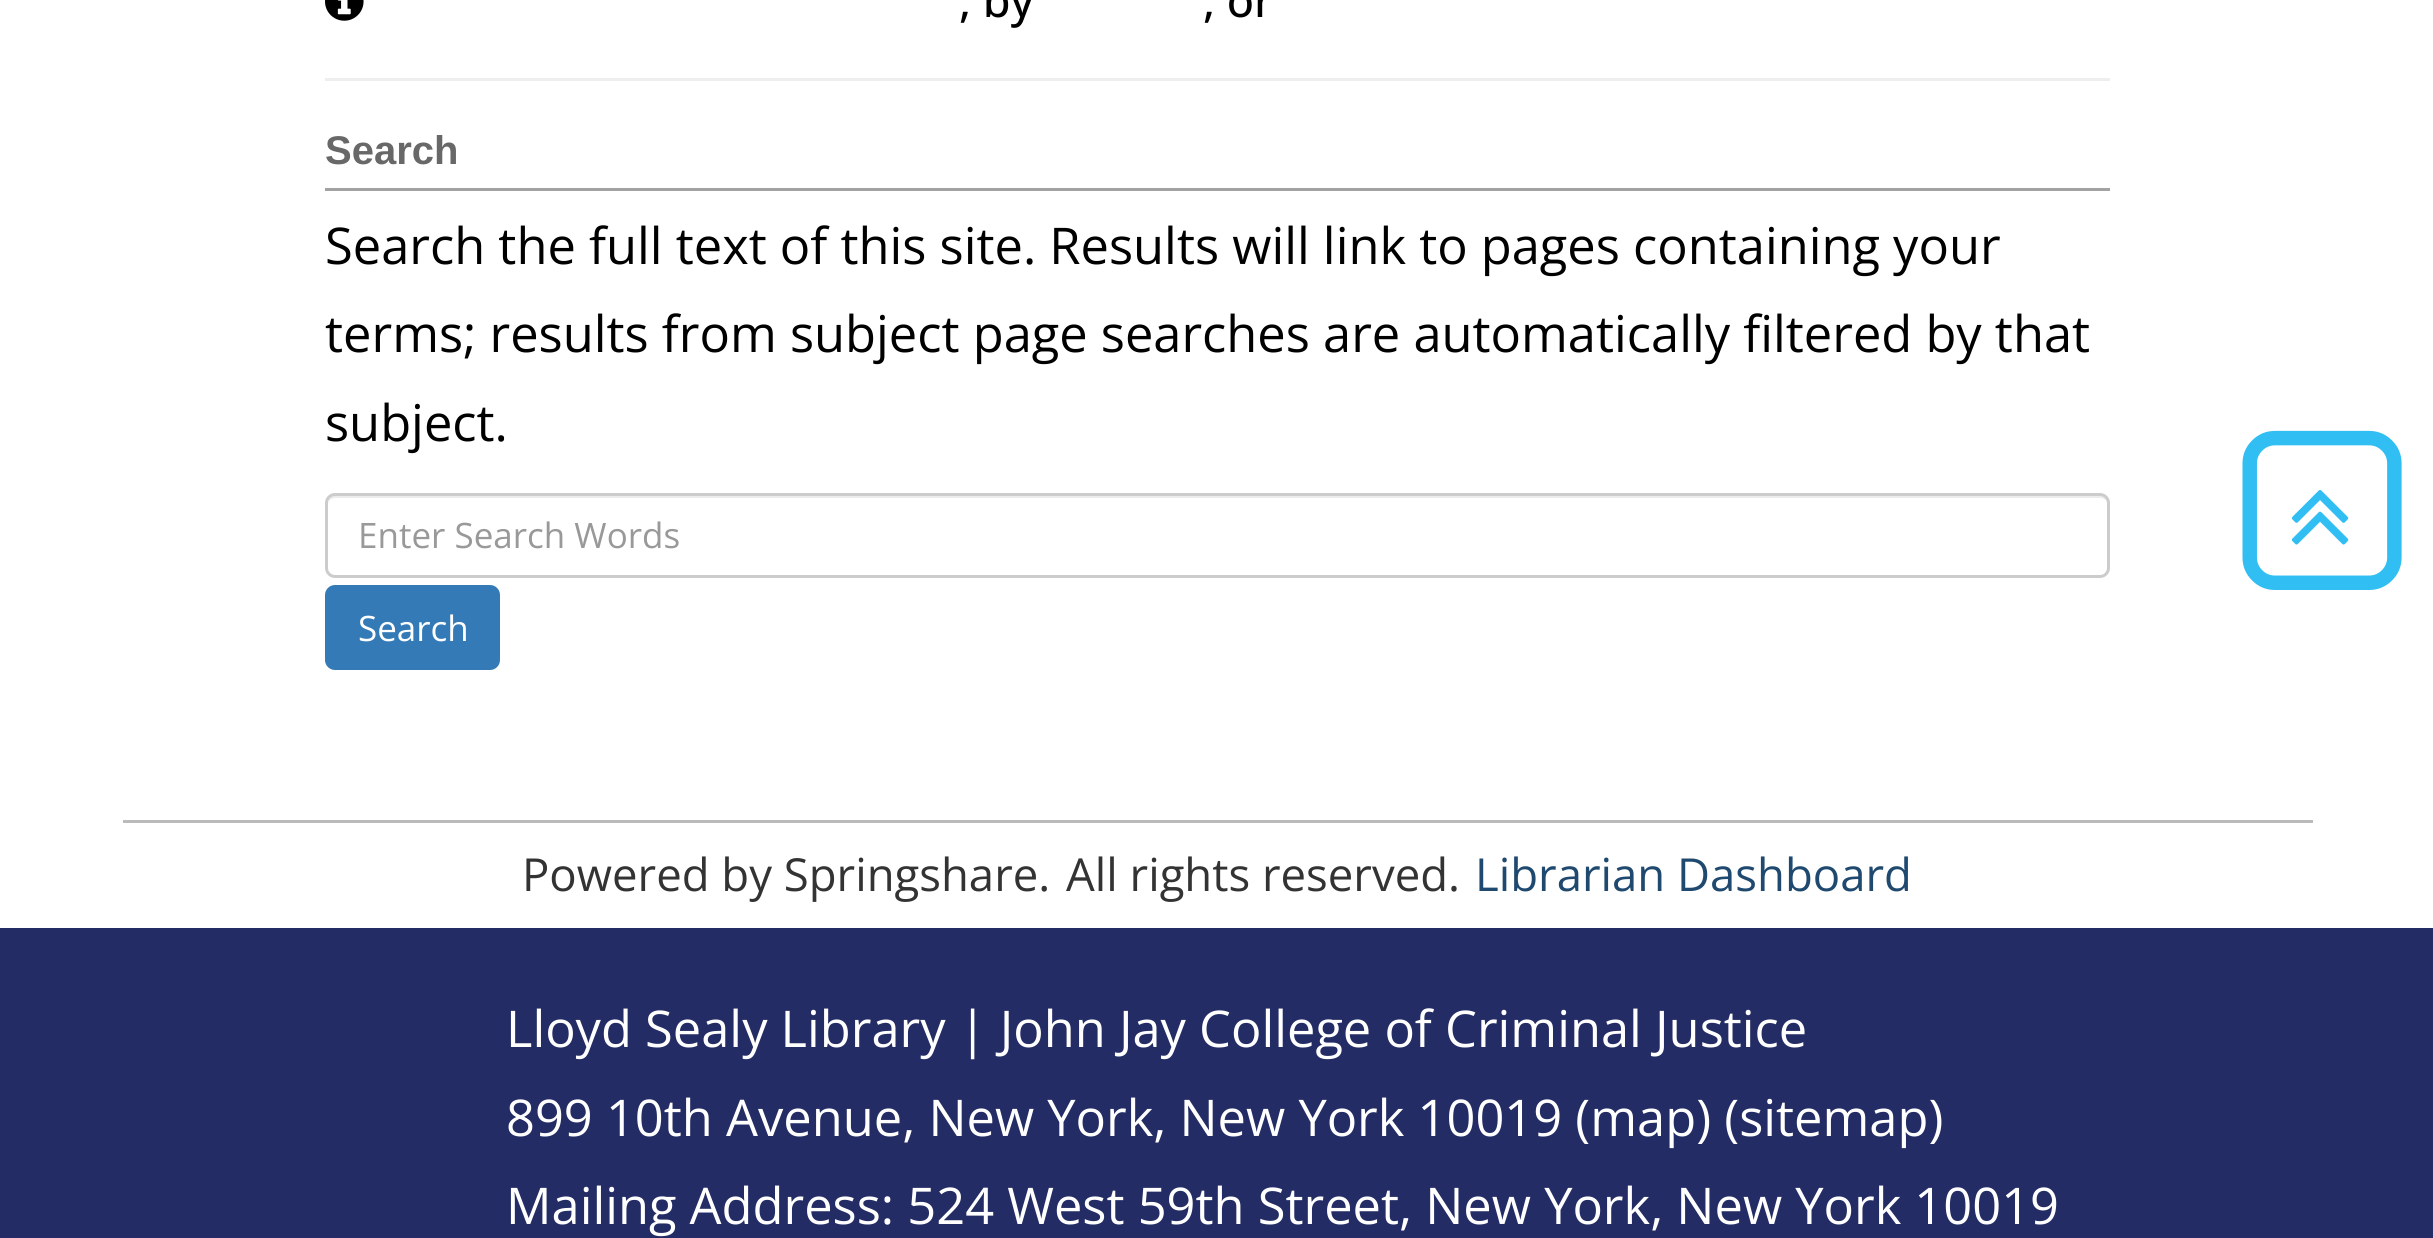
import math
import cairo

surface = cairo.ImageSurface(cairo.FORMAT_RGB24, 2433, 1238)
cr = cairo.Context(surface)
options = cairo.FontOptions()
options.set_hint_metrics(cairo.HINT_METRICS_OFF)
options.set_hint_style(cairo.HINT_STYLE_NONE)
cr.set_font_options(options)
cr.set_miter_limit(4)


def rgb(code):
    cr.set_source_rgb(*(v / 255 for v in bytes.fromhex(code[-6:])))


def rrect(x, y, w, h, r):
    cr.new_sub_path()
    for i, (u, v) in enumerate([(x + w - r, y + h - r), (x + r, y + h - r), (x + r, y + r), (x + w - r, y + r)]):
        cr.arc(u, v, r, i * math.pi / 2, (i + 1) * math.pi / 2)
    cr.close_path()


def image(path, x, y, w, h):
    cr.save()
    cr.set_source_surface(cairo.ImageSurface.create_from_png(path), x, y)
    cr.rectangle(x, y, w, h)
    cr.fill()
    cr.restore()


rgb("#ffffff")
cr.paint()
image("img/1.png", 325, 0, 39, 21)
rgb("#eeeeee")
cr.rectangle(325, 78, 1785, 3)
cr.fill()
rgb("#a2a2a2")
cr.rectangle(325, 188, 1785, 3)
cr.fill()
rgb("#ececec")
cr.new_path()
cr.move_to(335, 498)
cr.line_to(2100, 498)
cr.curve_to(2104, 498, 2108, 501, 2108, 505)
cr.curve_to(2108, 500, 2106, 495, 2100, 495)
cr.line_to(336, 495)
cr.curve_to(330, 495, 328, 500, 328, 505)
cr.curve_to(328, 501, 331, 498, 335, 498)
cr.close_path()
cr.fill()
rrect(326.5, 494.5, 1782, 82, 8.5)
rgb("#cccccc")
cr.set_line_width(3)
cr.stroke()
rgb("#337ab7")
rrect(326.5, 586.5, 172, 82, 8.5)
cr.fill_preserve()
cr.stroke()
image("img/2.png", 2242, 430, 160, 160)
image("img/3.png", 2291, 490, 58, 55)
rgb("#bbbbbb")
cr.rectangle(123, 820, 2190, 3)
cr.fill()
rgb("#232c64")
cr.rectangle(0, 928, 2433, 310)
cr.fill()
cr.select_font_face("Open Sans Medium")
cr.set_font_size(45)
rgb("#000000")
cr.move_to(959, 17)
cr.show_text(", by")
cr.move_to(1203, 17)
cr.show_text(", or")
cr.select_font_face("Liberation Sans", cairo.FONT_SLANT_NORMAL, cairo.FONT_WEIGHT_BOLD)
cr.set_font_size(40)
rgb("#686868")
cr.move_to(325, 164)
cr.show_text("Search")
cr.select_font_face("Open Sans")
cr.set_font_size(50.6)
rgb("#000000")
for x, y, s in [
    (325, 264, "Search the full text of this site. Results will link to pages containing your"),
    (325, 352, "terms; results from subject page searches are automatically filtered by that"),
    (325, 441, "subject."),
]:
    cr.move_to(x, y)
    cr.show_text(s)
cr.set_font_size(35)
rgb("#999999")
cr.move_to(358, 548)
cr.show_text("Enter Search Words")
rgb("#ffffff")
cr.move_to(358, 641)
cr.show_text("Search")
cr.set_font_size(45.5)
rgb("#333333")
cr.move_to(522, 891)
cr.show_text("Powered by Springshare.")
cr.move_to(1066, 891)
cr.show_text("All rights reserved.")
rgb("#1f496e")
cr.move_to(1475, 891)
cr.show_text("Librarian Dashboard")
cr.set_font_size(50.6)
rgb("#ffffff")
for x, y, s in [
    (506, 1047, "Lloyd Sealy Library | John Jay College of Criminal Justice"),
    (506, 1136, "899 10th Avenue, New York, New York 10019 (map) (sitemap)"),
    (506, 1224, "Mailing Address: 524 West 59th Street, New York, New York 10019"),
]:
    cr.move_to(x, y)
    cr.show_text(s)
surface.write_to_png("page.png")
